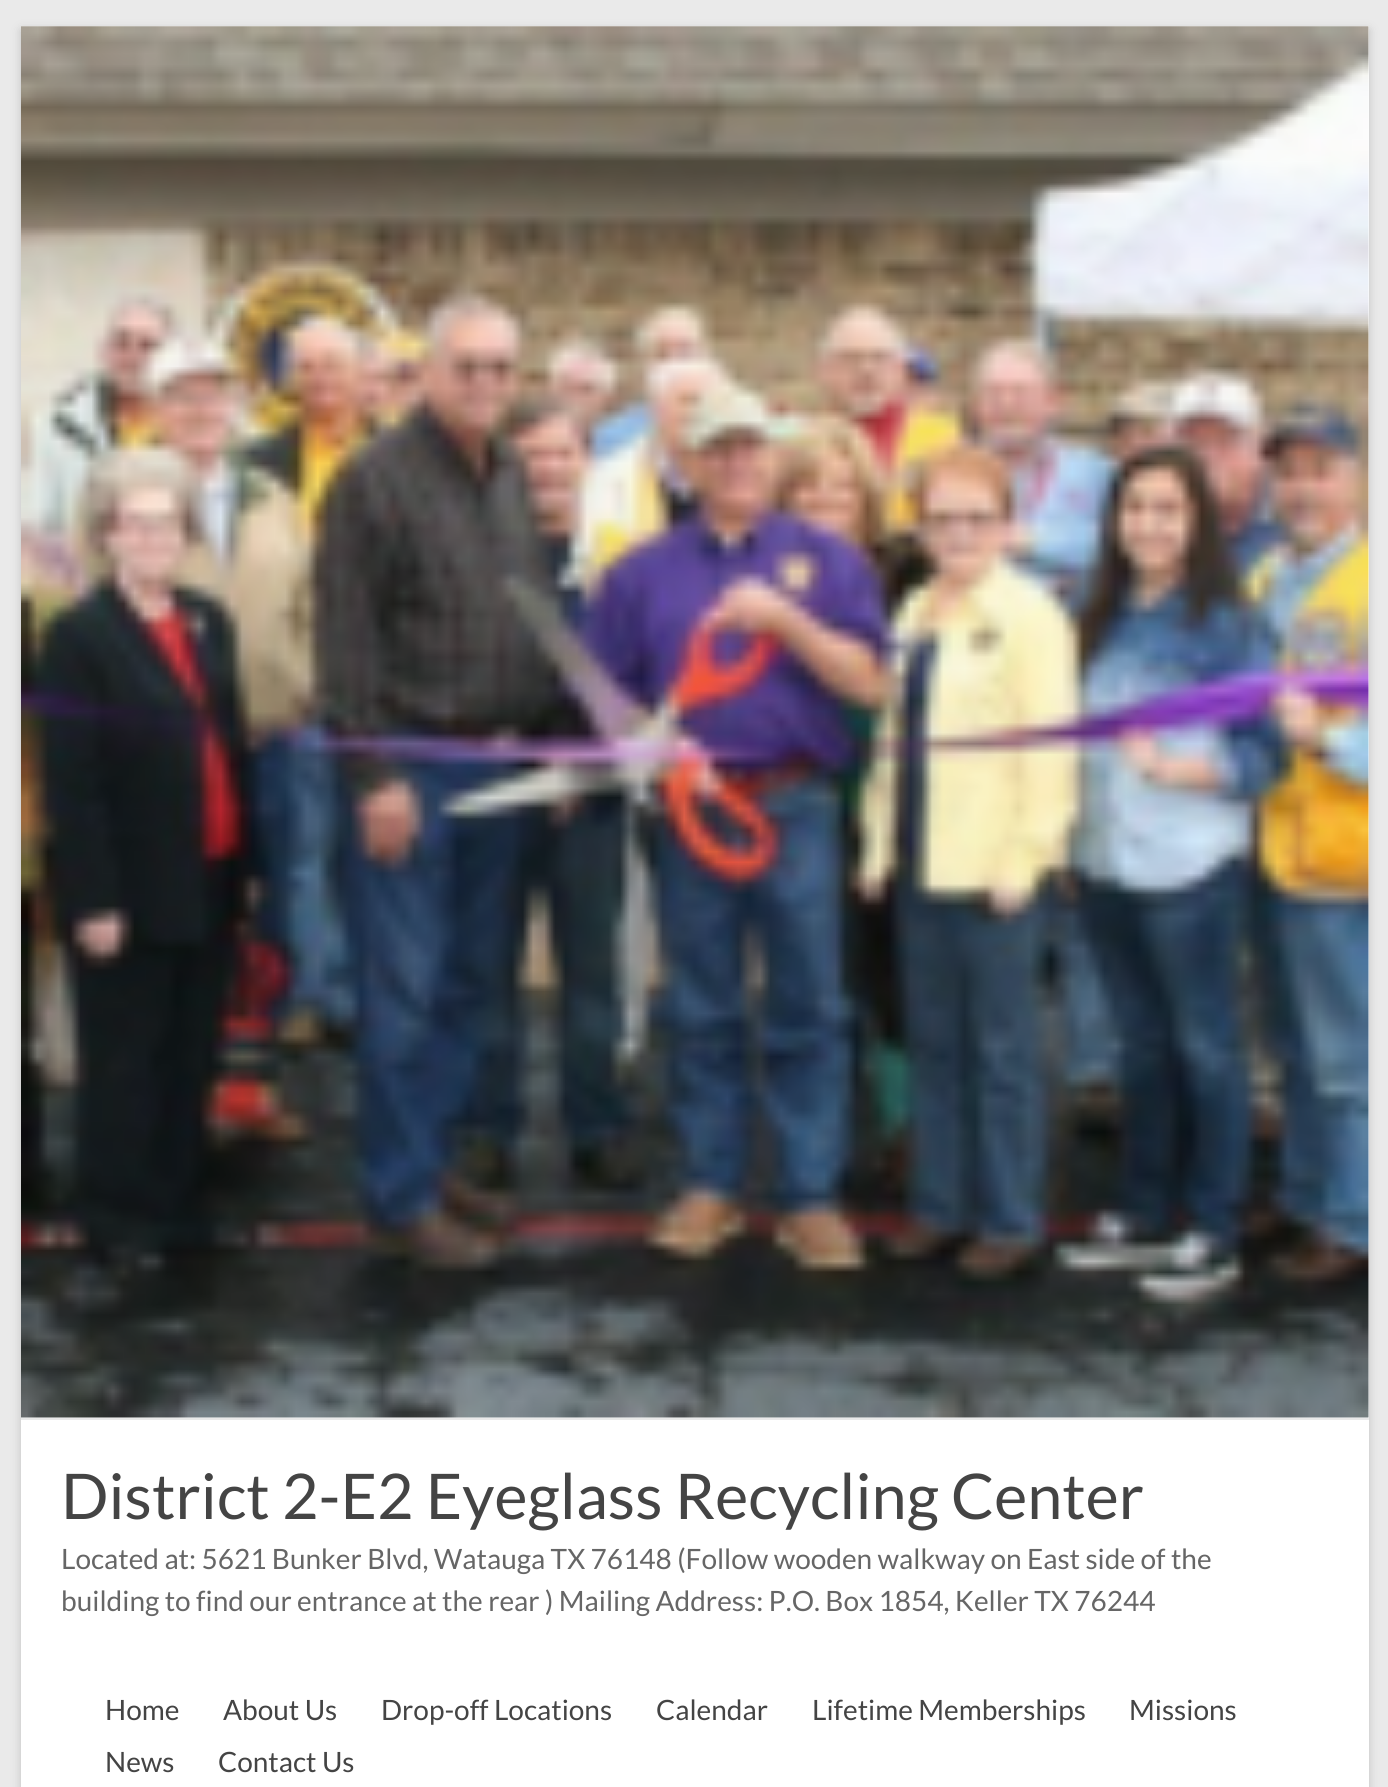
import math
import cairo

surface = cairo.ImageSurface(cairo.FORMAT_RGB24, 1388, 1787)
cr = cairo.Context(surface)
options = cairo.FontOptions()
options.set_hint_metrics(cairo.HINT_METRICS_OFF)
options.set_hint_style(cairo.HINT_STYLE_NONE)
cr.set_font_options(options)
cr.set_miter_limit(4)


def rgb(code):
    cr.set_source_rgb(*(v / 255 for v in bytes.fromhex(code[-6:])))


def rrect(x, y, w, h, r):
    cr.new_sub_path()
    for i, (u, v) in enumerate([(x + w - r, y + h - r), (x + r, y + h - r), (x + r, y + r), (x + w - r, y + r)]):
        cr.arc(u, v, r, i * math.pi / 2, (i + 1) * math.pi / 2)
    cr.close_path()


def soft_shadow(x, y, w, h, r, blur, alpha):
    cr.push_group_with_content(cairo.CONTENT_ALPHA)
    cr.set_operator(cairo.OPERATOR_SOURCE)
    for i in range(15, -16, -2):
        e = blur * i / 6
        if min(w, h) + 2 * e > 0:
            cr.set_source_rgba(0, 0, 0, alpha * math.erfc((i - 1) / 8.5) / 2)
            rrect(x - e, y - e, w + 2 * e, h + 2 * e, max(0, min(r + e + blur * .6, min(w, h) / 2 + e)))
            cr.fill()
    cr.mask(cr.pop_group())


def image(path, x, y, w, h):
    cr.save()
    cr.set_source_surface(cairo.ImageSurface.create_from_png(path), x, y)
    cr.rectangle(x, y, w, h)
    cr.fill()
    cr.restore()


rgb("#eaeaea")
cr.paint()
rgb("#646464")
soft_shadow(21, 30, 1348, 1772, 0, 5, 0.3)
rgb("#ffffff")
cr.rectangle(21, 26, 1348, 1761)
cr.fill()
image("img/1.png", 21, 26, 1348, 1392)
rgb("#eaeaea")
cr.rectangle(21, 1418, 1348, 2)
cr.fill()
cr.select_font_face("Lato")
cr.set_font_size(63)
rgb("#444444")
cr.move_to(61, 1519)
cr.show_text("District 2-E2 Eyeglass Recycling Center")
cr.set_font_size(28)
rgb("#666666")
cr.move_to(61, 1569)
cr.show_text("Located at: 5621 Bunker Blvd, Watauga TX 76148 (Follow wooden walkway on East side of the")
cr.move_to(61, 1611)
cr.show_text("building to find our entrance at the rear ) Mailing Address: P.O. Box 1854, Keller TX 76244")
rgb("#444444")
for x, y, s in [
    (105, 1720, "Home"),
    (223, 1720, "About Us"),
    (381, 1720, "Drop-off Locations"),
    (656, 1720, "Calendar"),
    (812, 1720, "Lifetime Memberships"),
    (1129, 1720, "Missions"),
    (105, 1772, "News"),
    (218, 1772, "Contact Us"),
]:
    cr.move_to(x, y)
    cr.show_text(s)
surface.write_to_png("page.png")
